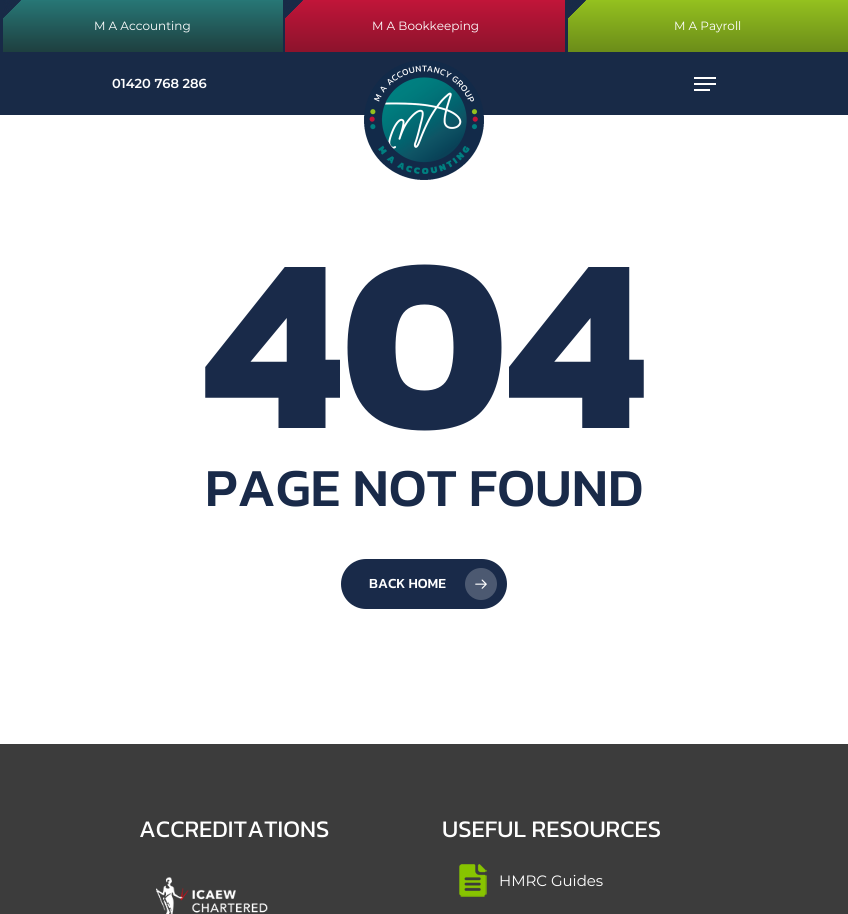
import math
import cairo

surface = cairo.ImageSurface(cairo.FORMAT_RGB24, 848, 914)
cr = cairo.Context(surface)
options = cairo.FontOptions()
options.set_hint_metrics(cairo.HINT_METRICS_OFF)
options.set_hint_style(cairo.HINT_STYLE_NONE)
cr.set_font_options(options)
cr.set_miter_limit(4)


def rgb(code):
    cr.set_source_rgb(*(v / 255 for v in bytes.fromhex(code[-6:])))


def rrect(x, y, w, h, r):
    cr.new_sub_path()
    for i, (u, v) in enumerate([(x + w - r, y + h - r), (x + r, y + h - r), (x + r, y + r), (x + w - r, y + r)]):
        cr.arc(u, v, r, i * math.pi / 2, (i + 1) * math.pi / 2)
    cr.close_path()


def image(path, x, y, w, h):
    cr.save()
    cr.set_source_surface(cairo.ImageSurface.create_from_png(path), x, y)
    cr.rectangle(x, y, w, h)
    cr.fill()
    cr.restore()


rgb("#ffffff")
cr.paint()
rgb("#182a47")
cr.rectangle(0, 0, 848, 115)
cr.fill()
image("img/1.png", 364, 60, 120, 120)
for x, y, w, h, color in [
    (694, 77, 22, 2, "#ffffff"),
    (694, 89, 16, 2, "#ffffff"),
    (694, 83, 22, 2, "#ffffff"),
]:
    rgb(color)
    cr.rectangle(x, y, w, h)
    cr.fill()
gradient = cairo.LinearGradient(143, 52, 143, 0)
gradient.add_color_stop_rgba(0, 0.118, 0.247, 0.247, 1)
gradient.add_color_stop_rgba(1, 0.153, 0.467, 0.463, 1)
cr.set_source(gradient)
cr.rectangle(3, 0, 280, 52)
cr.fill()
image("img/2.png", 3, 0, 18, 18)
gradient = cairo.LinearGradient(425, 52, 425, 0)
gradient.add_color_stop_rgba(0, 0.549, 0.075, 0.173, 1)
gradient.add_color_stop_rgba(1, 0.757, 0.082, 0.224, 1)
cr.set_source(gradient)
cr.rectangle(285, 0, 280, 52)
cr.fill()
image("img/3.png", 285, 0, 18, 18)
gradient = cairo.LinearGradient(708, 52, 708, 0)
gradient.add_color_stop_rgba(0, 0.42, 0.549, 0.098, 1)
gradient.add_color_stop_rgba(1, 0.58, 0.757, 0.122, 1)
cr.set_source(gradient)
cr.rectangle(568, 0, 280, 52)
cr.fill()
image("img/4.png", 568, 0, 18, 18)
rgb("#192a49")
rrect(341, 559, 166, 50, 25)
cr.fill()
rgb("#4c5971")
cr.arc(481, 584, 16, 0, 2 * math.pi)
cr.fill()
image("img/5.png", 475, 579, 12, 10)
rgb("#3c3c3c")
cr.rectangle(0, 744, 848, 170)
cr.fill()
image("img/6.png", 156, 877, 112, 37)
image("img/7.png", 459, 864, 28, 33)
cr.select_font_face("Montserrat")
cr.set_font_size(12)
rgb("#ffffff")
for x, y, s in [
    (94, 30, "M A Accounting"),
    (372, 30, "M A Bookkeeping"),
    (674, 30, "M A Payroll"),
]:
    cr.move_to(x, y)
    cr.show_text(s)
cr.select_font_face("Montserrat SemiBold")
cr.set_font_size(13)
cr.move_to(112, 88)
cr.show_text("01420 768 286")
cr.select_font_face("Kanit", cairo.FONT_SLANT_NORMAL, cairo.FONT_WEIGHT_BOLD)
cr.set_font_size(250)
rgb("#192a49")
cr.move_to(204, 428)
cr.show_text("404")
cr.select_font_face("Kanit Medium")
cr.set_font_size(54)
cr.move_to(205, 506)
cr.show_text("PAGE NOT FOUND")
cr.set_font_size(14)
rgb("#ffffff")
cr.move_to(369, 588)
cr.show_text("BACK HOME")
cr.select_font_face("Kanit")
cr.set_font_size(24)
cr.move_to(139, 837)
cr.show_text("ACCREDITATIONS")
cr.move_to(442, 837)
cr.show_text("USEFUL RESOURCES")
cr.select_font_face("Montserrat")
cr.set_font_size(15)
cr.move_to(499, 886)
cr.show_text("HMRC Guides")
surface.write_to_png("page.png")
